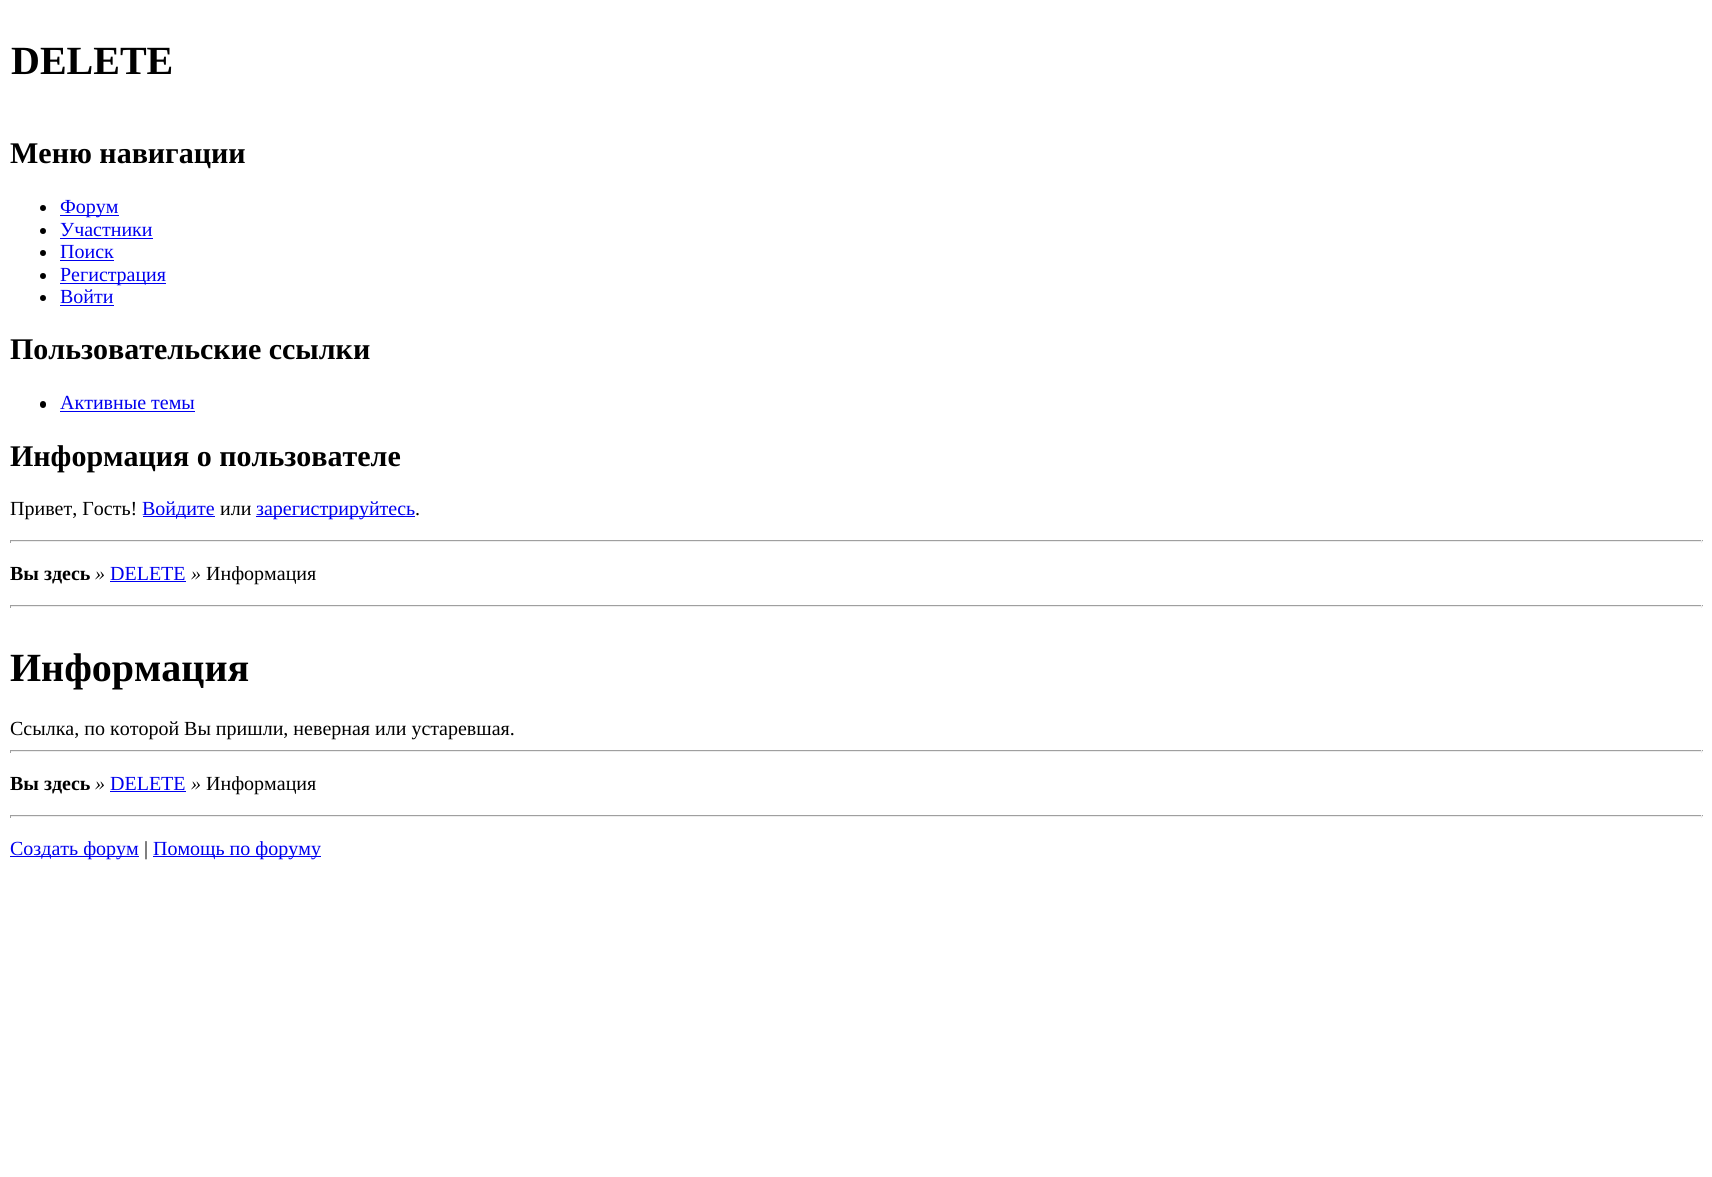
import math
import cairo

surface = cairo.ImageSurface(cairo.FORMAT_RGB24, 1712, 1177)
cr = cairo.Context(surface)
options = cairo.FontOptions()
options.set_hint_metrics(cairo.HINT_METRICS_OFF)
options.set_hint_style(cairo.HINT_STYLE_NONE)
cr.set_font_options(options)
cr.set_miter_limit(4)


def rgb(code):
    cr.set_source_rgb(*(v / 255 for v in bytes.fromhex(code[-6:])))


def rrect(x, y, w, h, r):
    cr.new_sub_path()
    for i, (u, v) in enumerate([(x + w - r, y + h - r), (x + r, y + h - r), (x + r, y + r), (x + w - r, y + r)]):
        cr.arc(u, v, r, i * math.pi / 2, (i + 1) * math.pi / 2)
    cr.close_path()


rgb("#ffffff")
cr.paint()
rgb("#000000")
cr.arc(43, 208, 3, 0, 2 * math.pi)
cr.fill()
rgb("#0000ee")
cr.rectangle(60, 215, 59, 1)
cr.fill()
rgb("#000000")
cr.arc(43, 231, 3, 0, 2 * math.pi)
cr.fill()
rgb("#0000ee")
cr.rectangle(60, 238, 93, 1)
cr.fill()
rgb("#000000")
cr.arc(43, 253, 3, 0, 2 * math.pi)
cr.fill()
rgb("#0000ee")
cr.rectangle(60, 260, 54, 1)
cr.fill()
rgb("#000000")
cr.arc(43, 276, 3, 0, 2 * math.pi)
cr.fill()
rgb("#0000ee")
cr.rectangle(60, 283, 106, 1)
cr.fill()
rgb("#000000")
cr.arc(43, 298, 3, 0, 2 * math.pi)
cr.fill()
rgb("#0000ee")
cr.rectangle(60, 305, 54, 1)
cr.fill()
rgb("#000000")
rrect(40, 401, 6, 7, 3)
cr.fill()
for x, y, w, h, color in [
    (60, 411, 135, 1, "#0000ee"),
    (143, 516, 72, 1, "#0000ee"),
    (256, 516, 159, 1, "#0000ee"),
    (10, 540, 1693, 1, "#9f9f9f"),
    (1701, 540, 1, 3, "#eeeeee"),
    (10, 541, 1693, 1, "#eeeeee"),
    (10, 540, 1, 3, "#9f9f9f"),
    (110, 581, 76, 1, "#0000ee"),
    (10, 605, 1693, 1, "#9f9f9f"),
    (1701, 605, 1, 3, "#eeeeee"),
    (10, 606, 1693, 1, "#eeeeee"),
    (10, 605, 1, 3, "#9f9f9f"),
    (10, 750, 1693, 1, "#9f9f9f"),
    (1701, 750, 1, 3, "#eeeeee"),
    (10, 751, 1693, 1, "#eeeeee"),
    (10, 750, 1, 3, "#9f9f9f"),
    (110, 791, 76, 1, "#0000ee"),
    (10, 815, 1693, 1, "#9f9f9f"),
    (1701, 815, 1, 3, "#eeeeee"),
    (10, 816, 1693, 1, "#eeeeee"),
    (10, 815, 1, 3, "#9f9f9f"),
    (10, 856, 129, 1, "#0000ee"),
    (153, 856, 168, 1, "#0000ee"),
]:
    rgb(color)
    cr.rectangle(x, y, w, h)
    cr.fill()
cr.select_font_face("Liberation Serif", cairo.FONT_SLANT_NORMAL, cairo.FONT_WEIGHT_BOLD)
cr.set_font_size(40)
rgb("#000000")
cr.move_to(11, 74)
cr.show_text("DELETE")
cr.set_font_size(30)
cr.move_to(10, 163)
cr.show_text("Меню навигации")
cr.select_font_face("Liberation Serif")
cr.set_font_size(20)
rgb("#0000ee")
for x, y, s in [
    (60, 213, "Форум"),
    (60, 236, "Участники"),
    (60, 258, "Поиск"),
    (60, 281, "Регистрация"),
    (60, 303, "Войти"),
]:
    cr.move_to(x, y)
    cr.show_text(s)
cr.select_font_face("Liberation Serif", cairo.FONT_SLANT_NORMAL, cairo.FONT_WEIGHT_BOLD)
cr.set_font_size(30)
rgb("#000000")
cr.move_to(10, 359)
cr.show_text("Пользовательские ссылки")
cr.select_font_face("Liberation Serif")
cr.set_font_size(20)
rgb("#0000ee")
cr.move_to(60, 409)
cr.show_text("Активные темы")
cr.select_font_face("Liberation Serif", cairo.FONT_SLANT_NORMAL, cairo.FONT_WEIGHT_BOLD)
cr.set_font_size(30)
rgb("#000000")
cr.move_to(10, 466)
cr.show_text("Информация о пользователе")
cr.select_font_face("Liberation Serif")
cr.set_font_size(20)
cr.move_to(10, 515)
cr.show_text("Привет, Гость!")
rgb("#0000ee")
cr.move_to(142, 515)
cr.show_text("Войдите")
rgb("#000000")
cr.move_to(220, 515)
cr.show_text("или")
rgb("#0000ee")
cr.move_to(256, 515)
cr.show_text("зарегистрируйтесь")
rgb("#000000")
cr.move_to(415, 515)
cr.show_text(".")
cr.select_font_face("Liberation Serif", cairo.FONT_SLANT_NORMAL, cairo.FONT_WEIGHT_BOLD)
cr.move_to(10, 580)
cr.show_text("Вы здесь")
cr.select_font_face("Liberation Serif", cairo.FONT_SLANT_ITALIC)
cr.move_to(95, 580)
cr.show_text("»")
cr.select_font_face("Liberation Serif")
rgb("#0000ee")
cr.move_to(110, 580)
cr.show_text("DELETE")
cr.select_font_face("Liberation Serif", cairo.FONT_SLANT_ITALIC)
rgb("#000000")
cr.move_to(191, 580)
cr.show_text("»")
cr.select_font_face("Liberation Serif")
cr.move_to(206, 580)
cr.show_text("Информация")
cr.select_font_face("Liberation Serif", cairo.FONT_SLANT_NORMAL, cairo.FONT_WEIGHT_BOLD)
cr.set_font_size(40)
cr.move_to(10, 681)
cr.show_text("Информация")
cr.select_font_face("Liberation Serif")
cr.set_font_size(20)
cr.move_to(10, 735)
cr.show_text("Ссылка, по которой Вы пришли, неверная или устаревшая.")
cr.select_font_face("Liberation Serif", cairo.FONT_SLANT_NORMAL, cairo.FONT_WEIGHT_BOLD)
cr.move_to(10, 790)
cr.show_text("Вы здесь")
cr.select_font_face("Liberation Serif", cairo.FONT_SLANT_ITALIC)
cr.move_to(95, 790)
cr.show_text("»")
cr.select_font_face("Liberation Serif")
rgb("#0000ee")
cr.move_to(110, 790)
cr.show_text("DELETE")
cr.select_font_face("Liberation Serif", cairo.FONT_SLANT_ITALIC)
rgb("#000000")
cr.move_to(191, 790)
cr.show_text("»")
cr.select_font_face("Liberation Serif")
cr.move_to(206, 790)
cr.show_text("Информация")
rgb("#0000ee")
cr.move_to(10, 855)
cr.show_text("Создать форум")
rgb("#000000")
cr.move_to(144, 855)
cr.show_text("|")
rgb("#0000ee")
cr.move_to(153, 855)
cr.show_text("Помощь по форуму")
surface.write_to_png("page.png")
